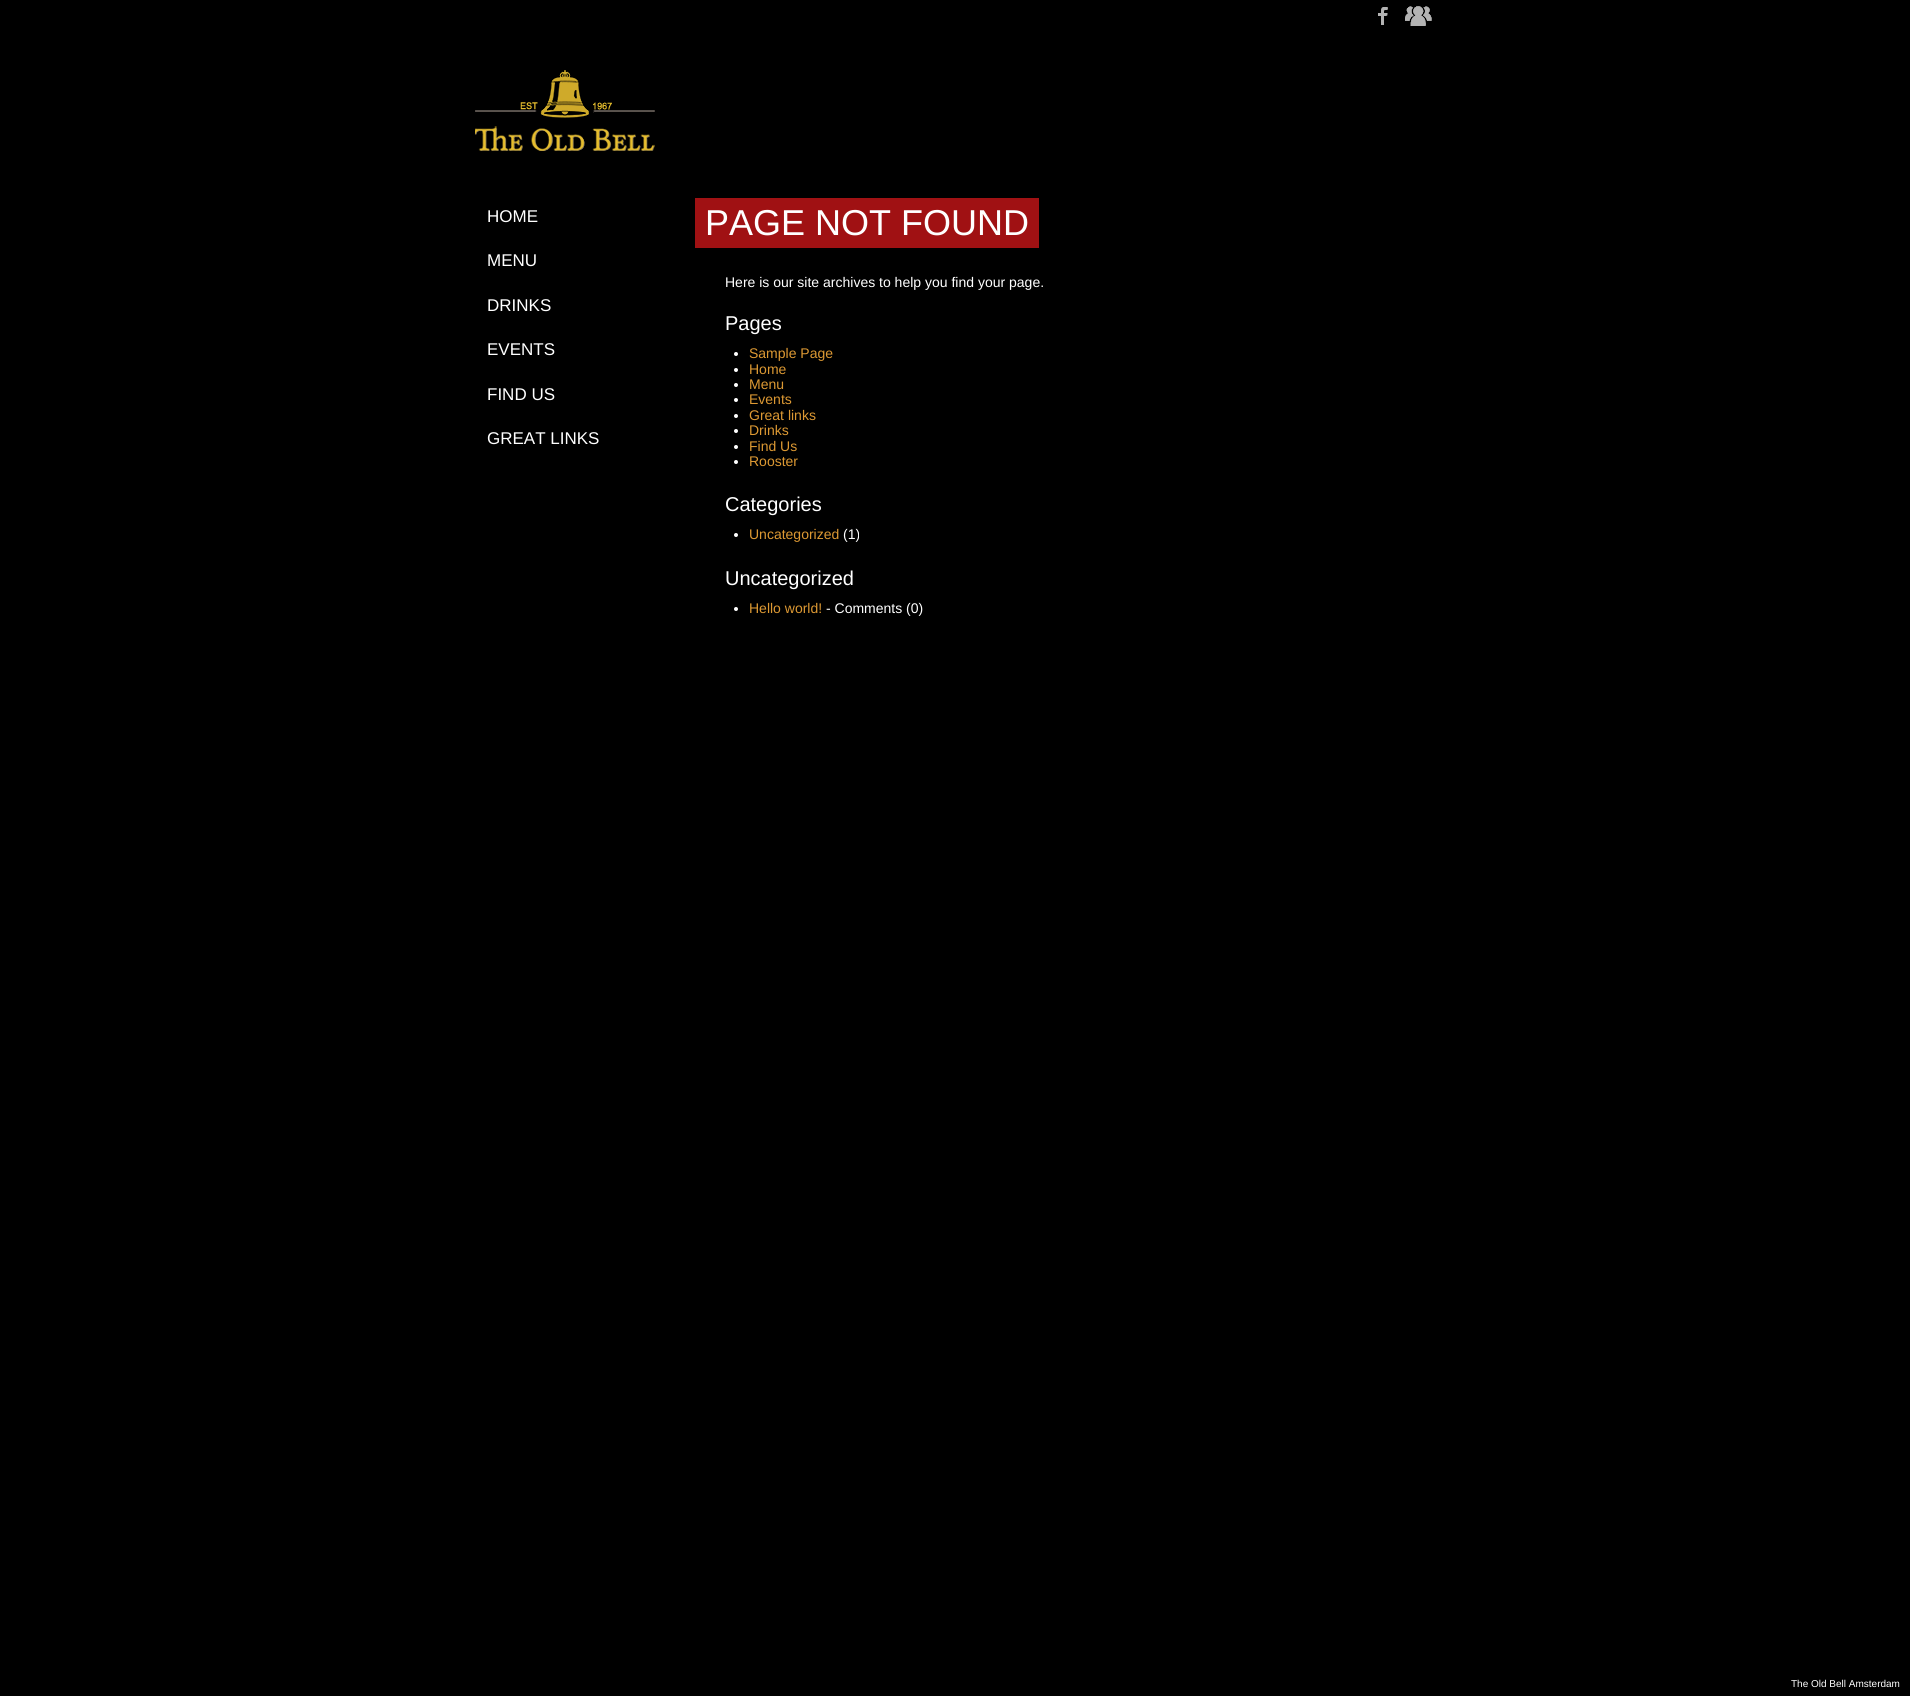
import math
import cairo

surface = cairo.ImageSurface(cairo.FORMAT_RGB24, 1910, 1696)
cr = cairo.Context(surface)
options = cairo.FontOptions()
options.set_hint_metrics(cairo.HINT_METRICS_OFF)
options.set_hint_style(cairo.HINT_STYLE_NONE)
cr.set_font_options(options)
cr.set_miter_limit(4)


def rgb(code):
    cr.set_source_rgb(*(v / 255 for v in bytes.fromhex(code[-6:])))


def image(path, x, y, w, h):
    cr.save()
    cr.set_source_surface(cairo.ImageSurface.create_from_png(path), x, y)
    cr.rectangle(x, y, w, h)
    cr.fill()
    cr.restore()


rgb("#000000")
cr.paint()
image("img/1.png", 1378, 7, 10, 18)
image("img/2.png", 1405, 6, 27, 20)
image("img/3.png", 475, 70, 180, 81)
rgb("#a01113")
cr.rectangle(695, 198, 344, 50)
cr.fill()
rgb("#ffffff")
cr.arc(736, 354, 2, 0, 2 * math.pi)
cr.fill()
cr.arc(736, 370, 2, 0, 2 * math.pi)
cr.fill()
cr.arc(736, 385, 2, 0, 2 * math.pi)
cr.fill()
cr.arc(736, 400, 2, 0, 2 * math.pi)
cr.fill()
cr.arc(736, 416, 2, 0, 2 * math.pi)
cr.fill()
cr.arc(736, 431, 2, 0, 2 * math.pi)
cr.fill()
cr.arc(736, 447, 2, 0, 2 * math.pi)
cr.fill()
cr.arc(736, 462, 2, 0, 2 * math.pi)
cr.fill()
cr.arc(736, 535, 2, 0, 2 * math.pi)
cr.fill()
cr.arc(736, 609, 2, 0, 2 * math.pi)
cr.fill()
cr.select_font_face("Liberation Sans")
cr.set_font_size(17)
for x, y, s in [
    (487, 222, "HOME"),
    (487, 266, "MENU"),
    (487, 311, "DRINKS"),
    (487, 355, "EVENTS"),
    (487, 400, "FIND US"),
    (487, 444, "GREAT LINKS"),
]:
    cr.move_to(x, y)
    cr.show_text(s)
cr.set_font_size(36)
cr.move_to(705, 235)
cr.show_text("PAGE NOT FOUND")
cr.set_font_size(14)
cr.move_to(725, 287)
cr.show_text("Here is our site archives to help you find your page.")
cr.set_font_size(20)
cr.move_to(725, 330)
cr.show_text("Pages")
cr.set_font_size(14)
rgb("#dd9933")
for x, y, s in [
    (749, 358, "Sample Page"),
    (749, 374, "Home"),
    (749, 389, "Menu"),
    (749, 404, "Events"),
    (749, 420, "Great links"),
    (749, 435, "Drinks"),
    (749, 451, "Find Us"),
    (749, 466, "Rooster"),
]:
    cr.move_to(x, y)
    cr.show_text(s)
cr.set_font_size(20)
rgb("#ffffff")
cr.move_to(725, 511)
cr.show_text("Categories")
cr.set_font_size(14)
rgb("#dd9933")
cr.move_to(749, 539)
cr.show_text("Uncategorized")
rgb("#ffffff")
cr.move_to(843, 539)
cr.show_text("(1)")
cr.set_font_size(20)
cr.move_to(725, 585)
cr.show_text("Uncategorized")
cr.set_font_size(14)
rgb("#dd9933")
cr.move_to(749, 613)
cr.show_text("Hello world!")
rgb("#ffffff")
cr.move_to(826, 613)
cr.show_text("- Comments (0)")
cr.set_font_size(10)
cr.move_to(1791, 1687)
cr.show_text("The Old Bell Amsterdam")
surface.write_to_png("page.png")
